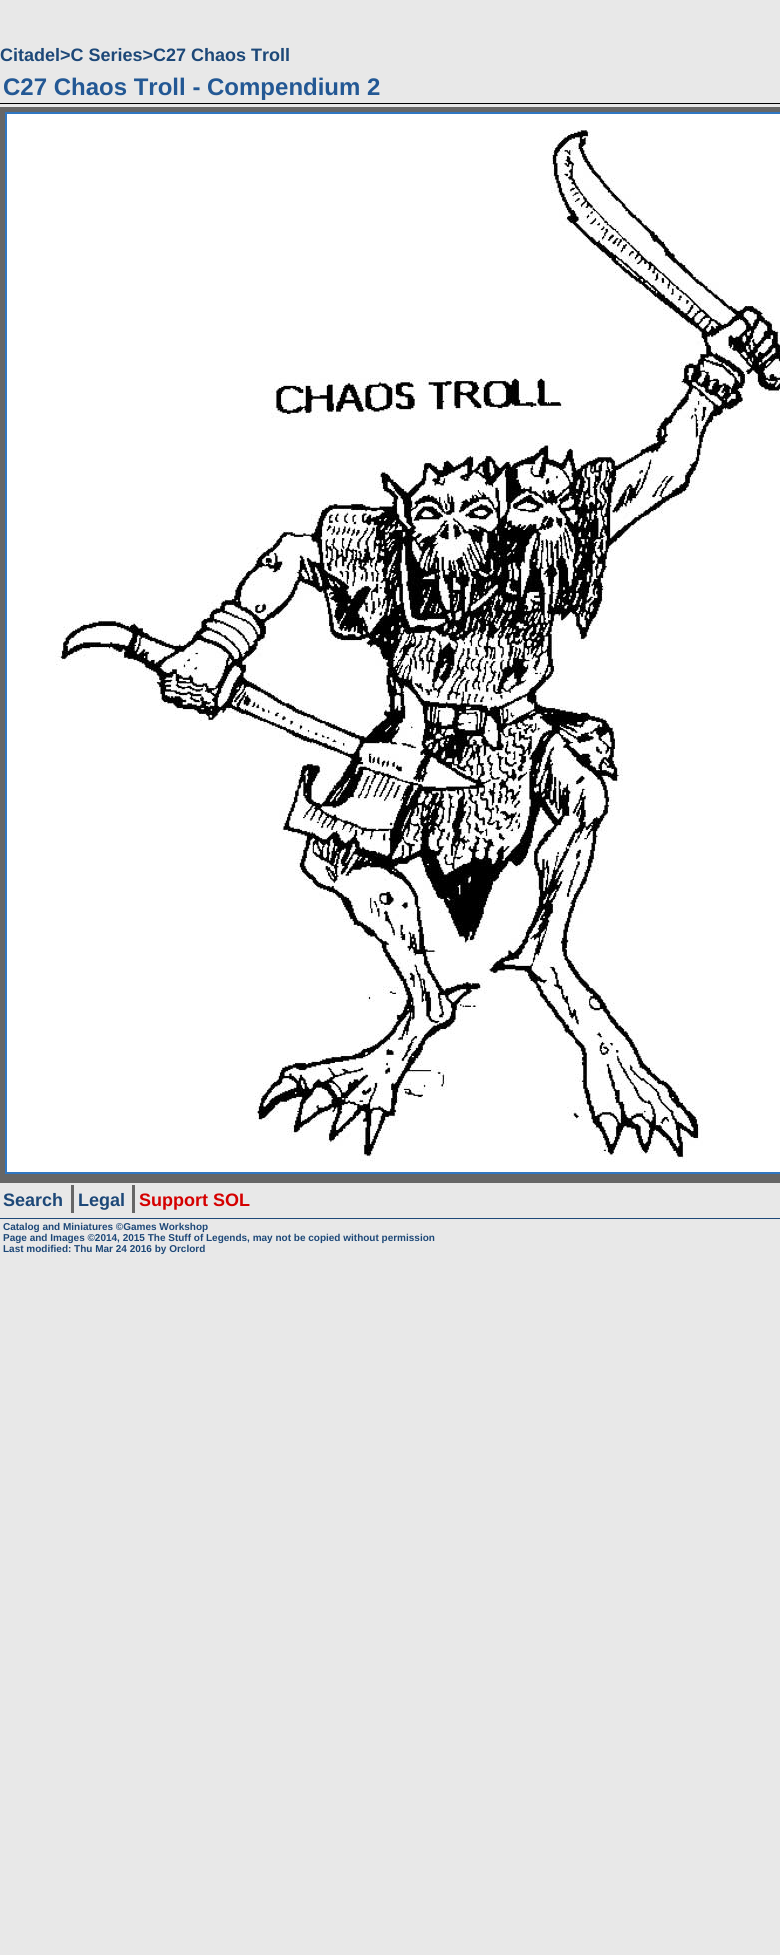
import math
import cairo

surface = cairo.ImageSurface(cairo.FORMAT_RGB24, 780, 1955)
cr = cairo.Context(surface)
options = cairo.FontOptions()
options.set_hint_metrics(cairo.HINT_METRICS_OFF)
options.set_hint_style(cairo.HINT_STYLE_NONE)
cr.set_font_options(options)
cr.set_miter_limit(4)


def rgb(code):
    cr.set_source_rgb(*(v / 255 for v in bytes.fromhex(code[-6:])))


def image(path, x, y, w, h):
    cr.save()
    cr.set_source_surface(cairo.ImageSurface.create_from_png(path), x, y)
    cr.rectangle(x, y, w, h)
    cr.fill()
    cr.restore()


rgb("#e8e8e8")
cr.paint()
rgb("#000000")
cr.rectangle(0, 103, 780, 1)
cr.fill()
rgb("#666666")
cr.rectangle(0, 107, 780, 1076)
cr.fill()
cr.rectangle(6, 113, 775, 1060)
rgb("#3077c2")
cr.stroke()
image("img/1.png", 7, 114, 773, 1058)
for x, y, w, h, color in [
    (71, 1185, 3, 28, "#666666"),
    (132, 1185, 3, 28, "#666666"),
    (0, 1218, 780, 1, "#1d4878"),
]:
    rgb(color)
    cr.rectangle(x, y, w, h)
    cr.fill()
cr.select_font_face("Liberation Sans", cairo.FONT_SLANT_NORMAL, cairo.FONT_WEIGHT_BOLD)
cr.set_font_size(18)
cr.move_to(0, 61)
cr.show_text("Citadel>C Series>C27 Chaos Troll")
cr.set_font_size(24)
rgb("#235894")
cr.move_to(3, 95)
cr.show_text("C27 Chaos Troll - Compendium 2")
cr.set_font_size(18)
rgb("#1d4878")
cr.move_to(3, 1206)
cr.show_text("Search")
cr.move_to(78, 1206)
cr.show_text("Legal")
rgb("#d50000")
cr.move_to(139, 1206)
cr.show_text("Support SOL")
cr.set_font_size(10)
rgb("#1d4878")
for x, y, s in [
    (3, 1230, "Catalog and Miniatures ©Games Workshop"),
    (3, 1241, "Page and Images ©2014, 2015 The Stuff of Legends, may not be copied without permission"),
    (3, 1252, "Last modified: Thu Mar 24 2016 by Orclord"),
]:
    cr.move_to(x, y)
    cr.show_text(s)
surface.write_to_png("page.png")
